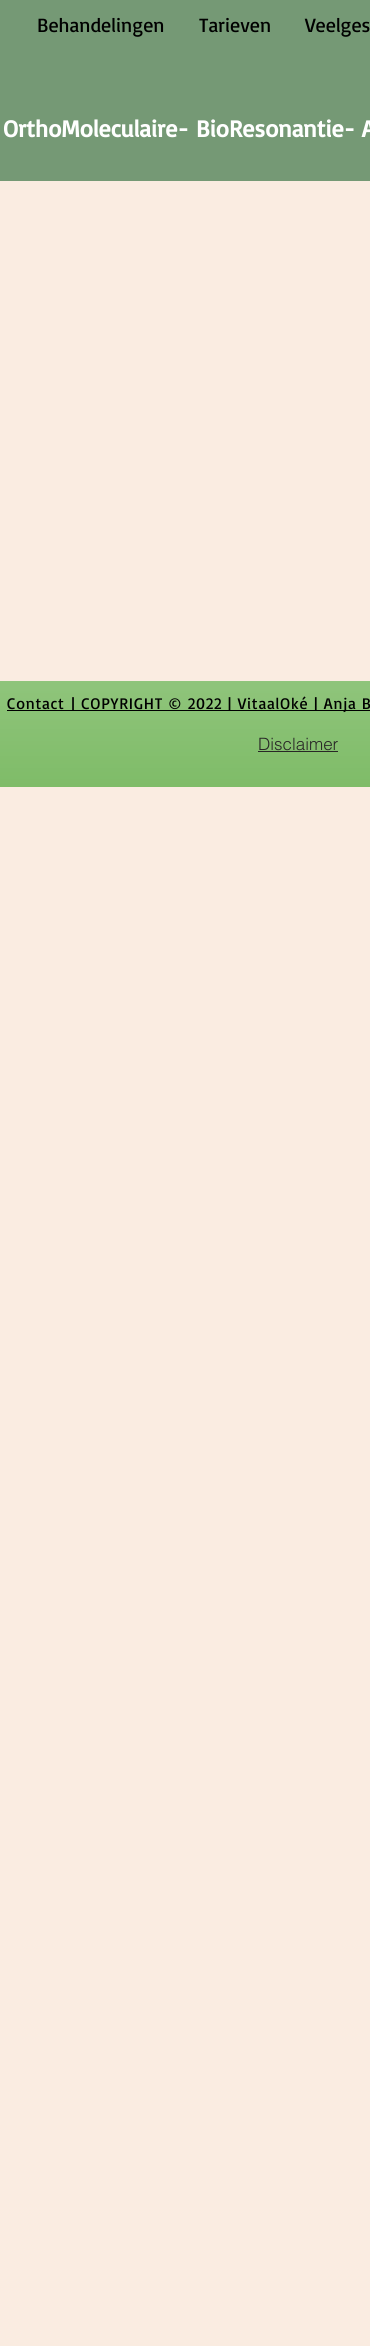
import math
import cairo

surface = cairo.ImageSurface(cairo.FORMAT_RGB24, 370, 2346)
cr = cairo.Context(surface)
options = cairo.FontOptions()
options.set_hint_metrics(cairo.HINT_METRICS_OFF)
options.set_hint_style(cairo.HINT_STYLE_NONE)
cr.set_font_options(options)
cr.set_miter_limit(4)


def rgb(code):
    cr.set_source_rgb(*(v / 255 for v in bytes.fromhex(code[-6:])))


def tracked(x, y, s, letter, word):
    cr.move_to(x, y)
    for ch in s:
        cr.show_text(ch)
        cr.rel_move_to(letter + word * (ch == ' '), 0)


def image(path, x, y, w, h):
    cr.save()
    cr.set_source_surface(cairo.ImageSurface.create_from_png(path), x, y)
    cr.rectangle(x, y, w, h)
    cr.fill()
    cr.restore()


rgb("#faece1")
cr.paint()
rgb("#759975")
cr.rectangle(0, 0, 370, 181)
cr.fill()
rgb("#68b04d")
cr.rectangle(0, 681, 370, 106)
cr.fill()
image("img/1.png", 0, 681, 370, 106)
rgb("#000000")
cr.rectangle(7, 710, 363, 1)
cr.fill()
rgb("#282626")
cr.rectangle(258, 751, 80, 1)
cr.fill()
cr.select_font_face("Basic")
cr.set_font_size(20)
rgb("#000000")
for x, y, s in [
    (37, 32, "Behandelingen"),
    (199, 32, "Tarieven"),
    (305, 32, "Veelges"),
]:
    cr.move_to(x, y)
    cr.show_text(s)
cr.select_font_face("Basic", cairo.FONT_SLANT_NORMAL, cairo.FONT_WEIGHT_BOLD)
cr.set_font_size(24)
rgb("#ffffff")
cr.move_to(3, 137)
cr.show_text("OrthoMoleculaire-")
cr.move_to(196, 137)
cr.show_text("BioResonantie- A")
cr.select_font_face("Basic")
cr.set_font_size(16)
rgb("#000000")
tracked(7, 709, "Contact", 0.8, 0)
tracked(71, 709, "| COPYRIGHT © 2022 | VitaalOké | Anja B", 0.8, 0)
cr.select_font_face("helvetica Light")
cr.set_font_size(17)
rgb("#282626")
cr.move_to(258, 750)
cr.show_text("Disclaimer")
surface.write_to_png("page.png")
